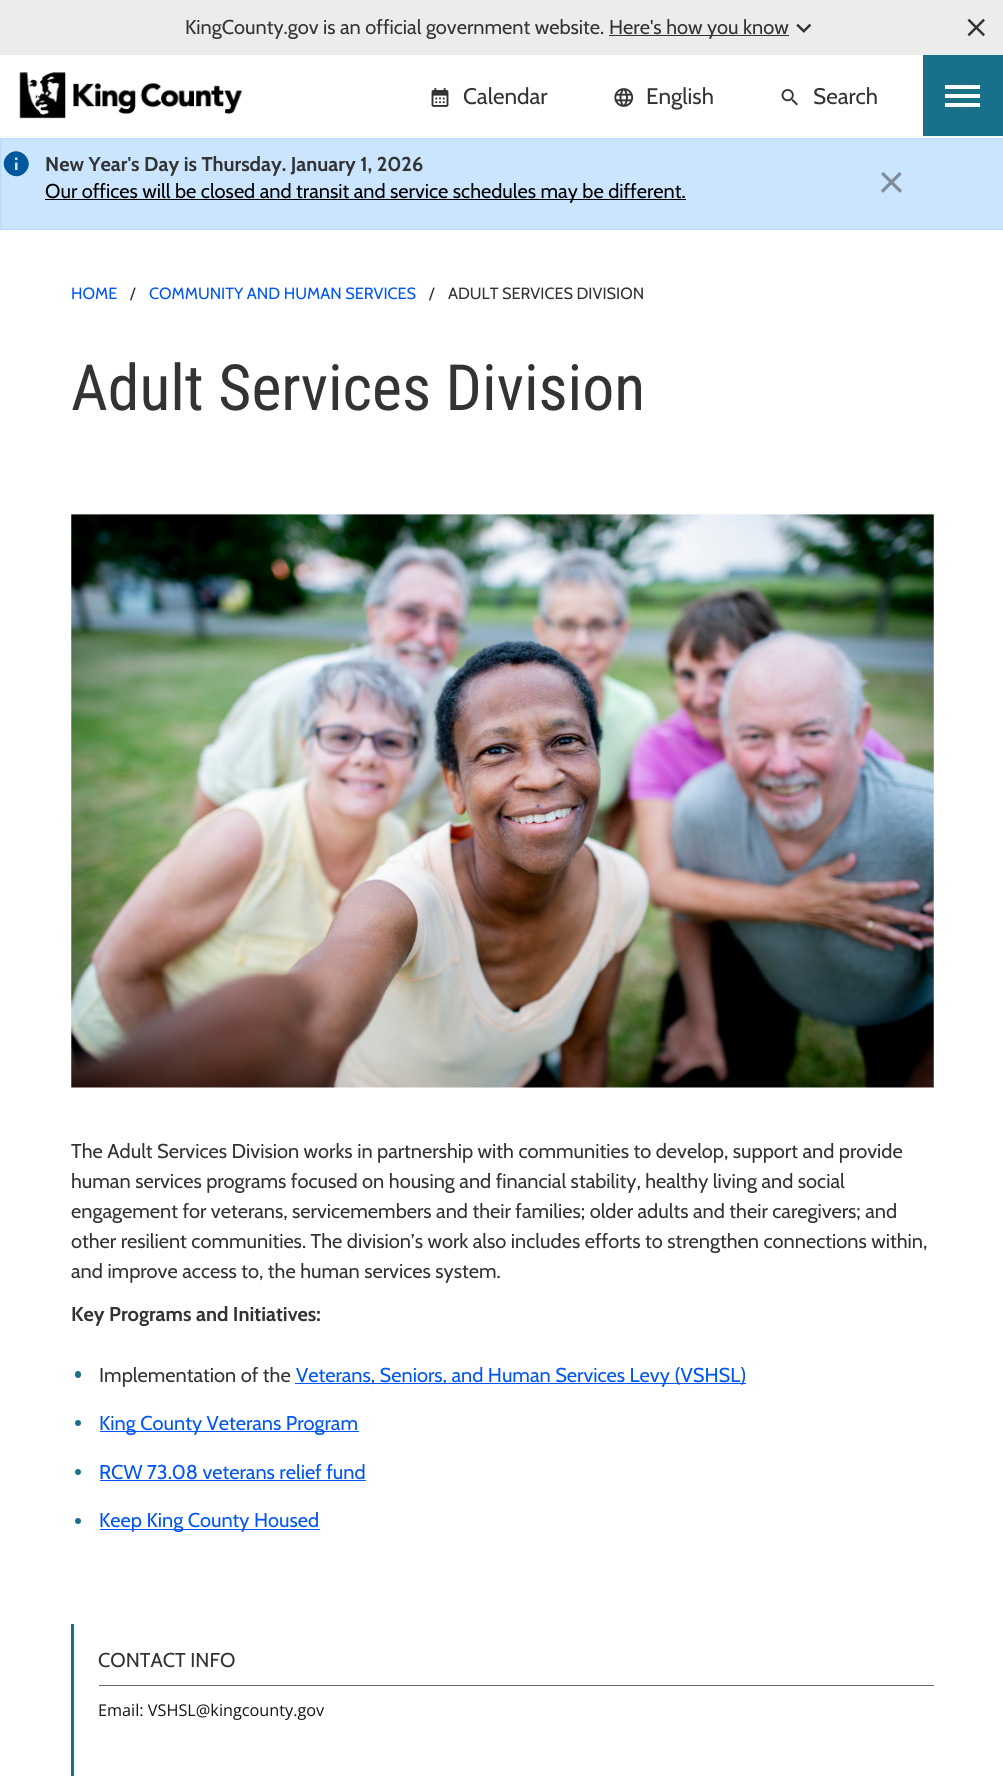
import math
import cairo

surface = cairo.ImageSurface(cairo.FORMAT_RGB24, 1003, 1776)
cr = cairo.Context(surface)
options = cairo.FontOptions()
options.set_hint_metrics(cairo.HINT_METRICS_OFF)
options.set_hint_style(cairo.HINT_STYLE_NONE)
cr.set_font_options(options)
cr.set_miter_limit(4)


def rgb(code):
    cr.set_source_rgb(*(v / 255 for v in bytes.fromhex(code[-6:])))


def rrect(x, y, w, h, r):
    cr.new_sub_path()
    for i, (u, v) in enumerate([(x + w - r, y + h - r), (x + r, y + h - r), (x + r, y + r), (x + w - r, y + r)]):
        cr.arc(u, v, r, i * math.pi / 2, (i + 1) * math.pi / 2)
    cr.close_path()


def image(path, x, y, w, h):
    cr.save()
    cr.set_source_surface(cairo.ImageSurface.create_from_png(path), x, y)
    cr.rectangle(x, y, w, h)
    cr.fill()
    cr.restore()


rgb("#ffffff")
cr.paint()
rgb("#ececec")
cr.rectangle(0, 0, 1003, 55)
cr.fill()
rgb("#333333")
cr.rectangle(609, 35, 180, 1)
cr.fill()
image("img/1.png", 796, 23, 16, 10)
image("img/2.png", 967, 18, 18, 19)
rgb("#f4f4f4")
cr.rectangle(0, 136, 1003, 1)
cr.fill()
image("img/3.png", 19, 72, 224, 47)
image("img/4.png", 431, 88, 18, 19)
image("img/5.png", 614, 88, 20, 19)
image("img/6.png", 781, 89, 17, 17)
for x, y, w, h, color in [
    (923, 55, 80, 81, "#187089"),
    (945, 85, 35, 4, "#ffffff"),
    (945, 94, 35, 4, "#ffffff"),
    (945, 103, 35, 4, "#ffffff"),
]:
    rgb(color)
    cr.rectangle(x, y, w, h)
    cr.fill()
rgb("#cce5ff")
cr.rectangle(0.5, 138.5, 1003, 91)
cr.fill_preserve()
rgb("#b8daff")
cr.set_line_width(1)
cr.stroke()
rgb("#01579b")
cr.new_path()
cr.move_to(17.5, 160)
cr.line_to(17.5, 157.5)
cr.line_to(15, 157.5)
cr.line_to(15, 160)
cr.close_path()
cr.move_to(17.5, 170)
cr.line_to(17.5, 162.5)
cr.line_to(15, 162.5)
cr.line_to(15, 170)
cr.close_path()
cr.move_to(7.5, 155)
cr.curve_to(19, 143.5, 36.5, 161, 25, 172.5)
cr.curve_to(13.5, 184, -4, 166.5, 7.5, 155)
cr.close_path()
cr.fill()
rgb("#000000")
cr.rectangle(45, 199, 636, 1)
cr.fill()
cr.rectangle(681, 199, 5, 1)
cr.fill()
image("img/7.png", 71, 513, 863, 575)
rgb("#187089")
rrect(75, 1371, 6, 7, 3)
cr.fill()
rgb("#0056f5")
cr.rectangle(295, 1383, 451, 1)
cr.fill()
rgb("#187089")
cr.arc(78, 1423, 3, 0, 2 * math.pi)
cr.fill()
rgb("#0056f5")
cr.rectangle(100, 1431, 259, 1)
cr.fill()
rgb("#187089")
cr.arc(78, 1472, 3, 0, 2 * math.pi)
cr.fill()
rgb("#0056f5")
cr.rectangle(100, 1480, 266, 1)
cr.fill()
rgb("#187089")
cr.arc(78, 1521, 3, 0, 2 * math.pi)
cr.fill()
for x, y, w, h, color in [
    (100, 1529, 220, 1, "#0056f5"),
    (71, 1624, 3, 152, "#187089"),
    (99, 1685, 835, 1, "#666666"),
]:
    rgb(color)
    cr.rectangle(x, y, w, h)
    cr.fill()
cr.select_font_face("Cabin")
cr.set_font_size(20)
rgb("#333333")
cr.move_to(185, 34)
cr.show_text("KingCounty.gov is an official government website.")
cr.move_to(609, 34)
cr.show_text("Here's how you know")
cr.set_font_size(22.5)
for x, y, s in [
    (463, 104, "Calendar"),
    (646, 104, "English"),
    (813, 104, "Search"),
]:
    cr.move_to(x, y)
    cr.show_text(s)
cr.select_font_face("Cabin", cairo.FONT_SLANT_NORMAL, cairo.FONT_WEIGHT_BOLD)
cr.set_font_size(20)
cr.move_to(45, 171)
cr.show_text("New Year's Day is Thursday. January 1, 2026")
cr.select_font_face("Cabin")
rgb("#000000")
cr.move_to(45, 198)
cr.show_text("Our offices will be closed and transit and service schedules may be different.")
cr.select_font_face("Carlito")
cr.set_font_size(50)
rgb("#808c99")
cr.move_to(879, 198)
cr.show_text("×")
cr.select_font_face("Cabin")
cr.set_font_size(16.25)
rgb("#0056f5")
cr.move_to(71, 299)
cr.show_text("HOME")
rgb("#333333")
cr.move_to(130, 299)
cr.show_text("/")
rgb("#0056f5")
cr.move_to(149, 299)
cr.show_text("COMMUNITY AND HUMAN SERVICES")
rgb("#333333")
cr.move_to(429, 299)
cr.show_text("/")
cr.move_to(448, 299)
cr.show_text("ADULT SERVICES DIVISION")
cr.select_font_face("Roboto Condensed")
cr.set_font_size(63.75)
cr.move_to(71, 410)
cr.show_text("Adult Services Division")
cr.select_font_face("Cabin")
cr.set_font_size(20)
for x, y, s in [
    (71, 1158, "The Adult Services Division works in partnership with communities to develop, support and provide"),
    (71, 1188, "human services programs focused on housing and financial stability, healthy living and social"),
    (71, 1218, "engagement for veterans, servicemembers and their families; older adults and their caregivers; and"),
    (71, 1248, "other resilient communities. The division’s work also includes efforts to strengthen connections within,"),
    (71, 1278, "and improve access to, the human services system."),
]:
    cr.move_to(x, y)
    cr.show_text(s)
cr.select_font_face("Cabin", cairo.FONT_SLANT_NORMAL, cairo.FONT_WEIGHT_BOLD)
cr.move_to(71, 1321)
cr.show_text("Key Programs and Initiatives:")
cr.select_font_face("Cabin")
cr.move_to(99, 1382)
cr.show_text("Implementation of the")
rgb("#0056f5")
for x, y, s in [
    (296, 1382, "Veterans, Seniors, and Human Services Levy (VSHSL)"),
    (99, 1430, "King County Veterans Program"),
    (99, 1479, "RCW 73.08 veterans relief fund"),
    (99, 1527, "Keep King County Housed"),
]:
    cr.move_to(x, y)
    cr.show_text(s)
rgb("#333333")
cr.move_to(98, 1667)
cr.show_text("CONTACT INFO")
cr.select_font_face("Open Sans")
cr.set_font_size(16.25)
rgb("#131313")
cr.move_to(98, 1716)
cr.show_text("Email: VSHSL@kingcounty.gov")
surface.write_to_png("page.png")
